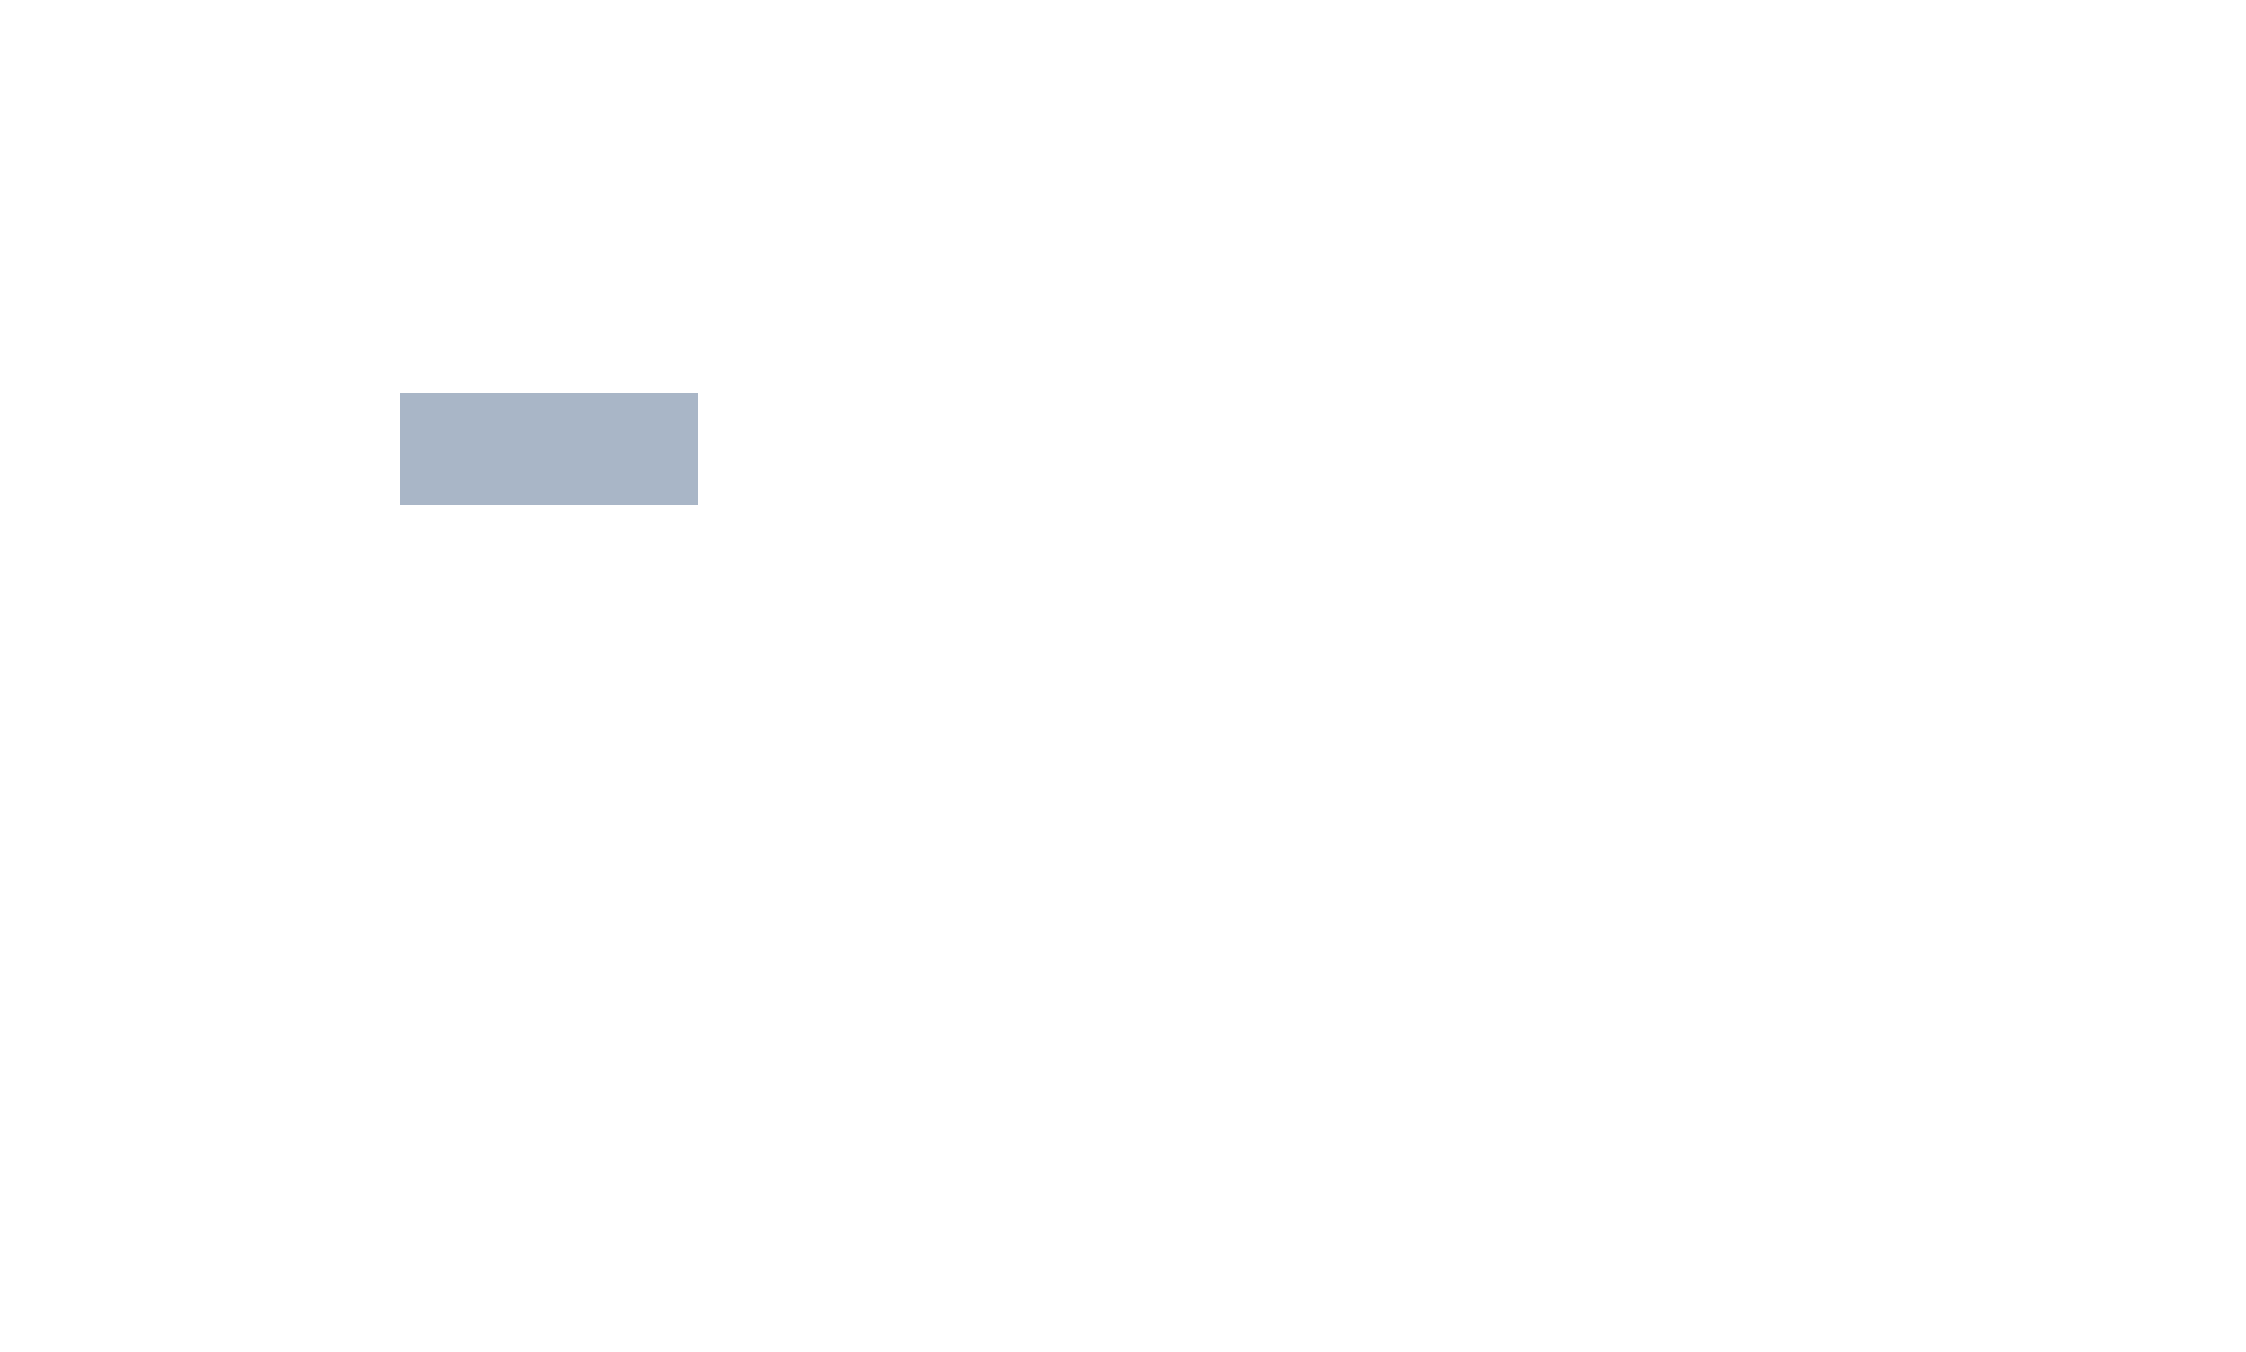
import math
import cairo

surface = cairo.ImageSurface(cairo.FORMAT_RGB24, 2246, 1352)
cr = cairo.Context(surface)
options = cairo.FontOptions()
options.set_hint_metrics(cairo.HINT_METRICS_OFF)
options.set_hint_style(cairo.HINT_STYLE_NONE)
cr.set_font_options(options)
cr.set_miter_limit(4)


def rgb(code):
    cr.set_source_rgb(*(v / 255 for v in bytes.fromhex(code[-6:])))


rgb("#ffffff")
cr.paint()
rgb("#a9b6c7")
cr.rectangle(400, 393, 298, 112)
cr.fill()
surface.write_to_png("page.png")
